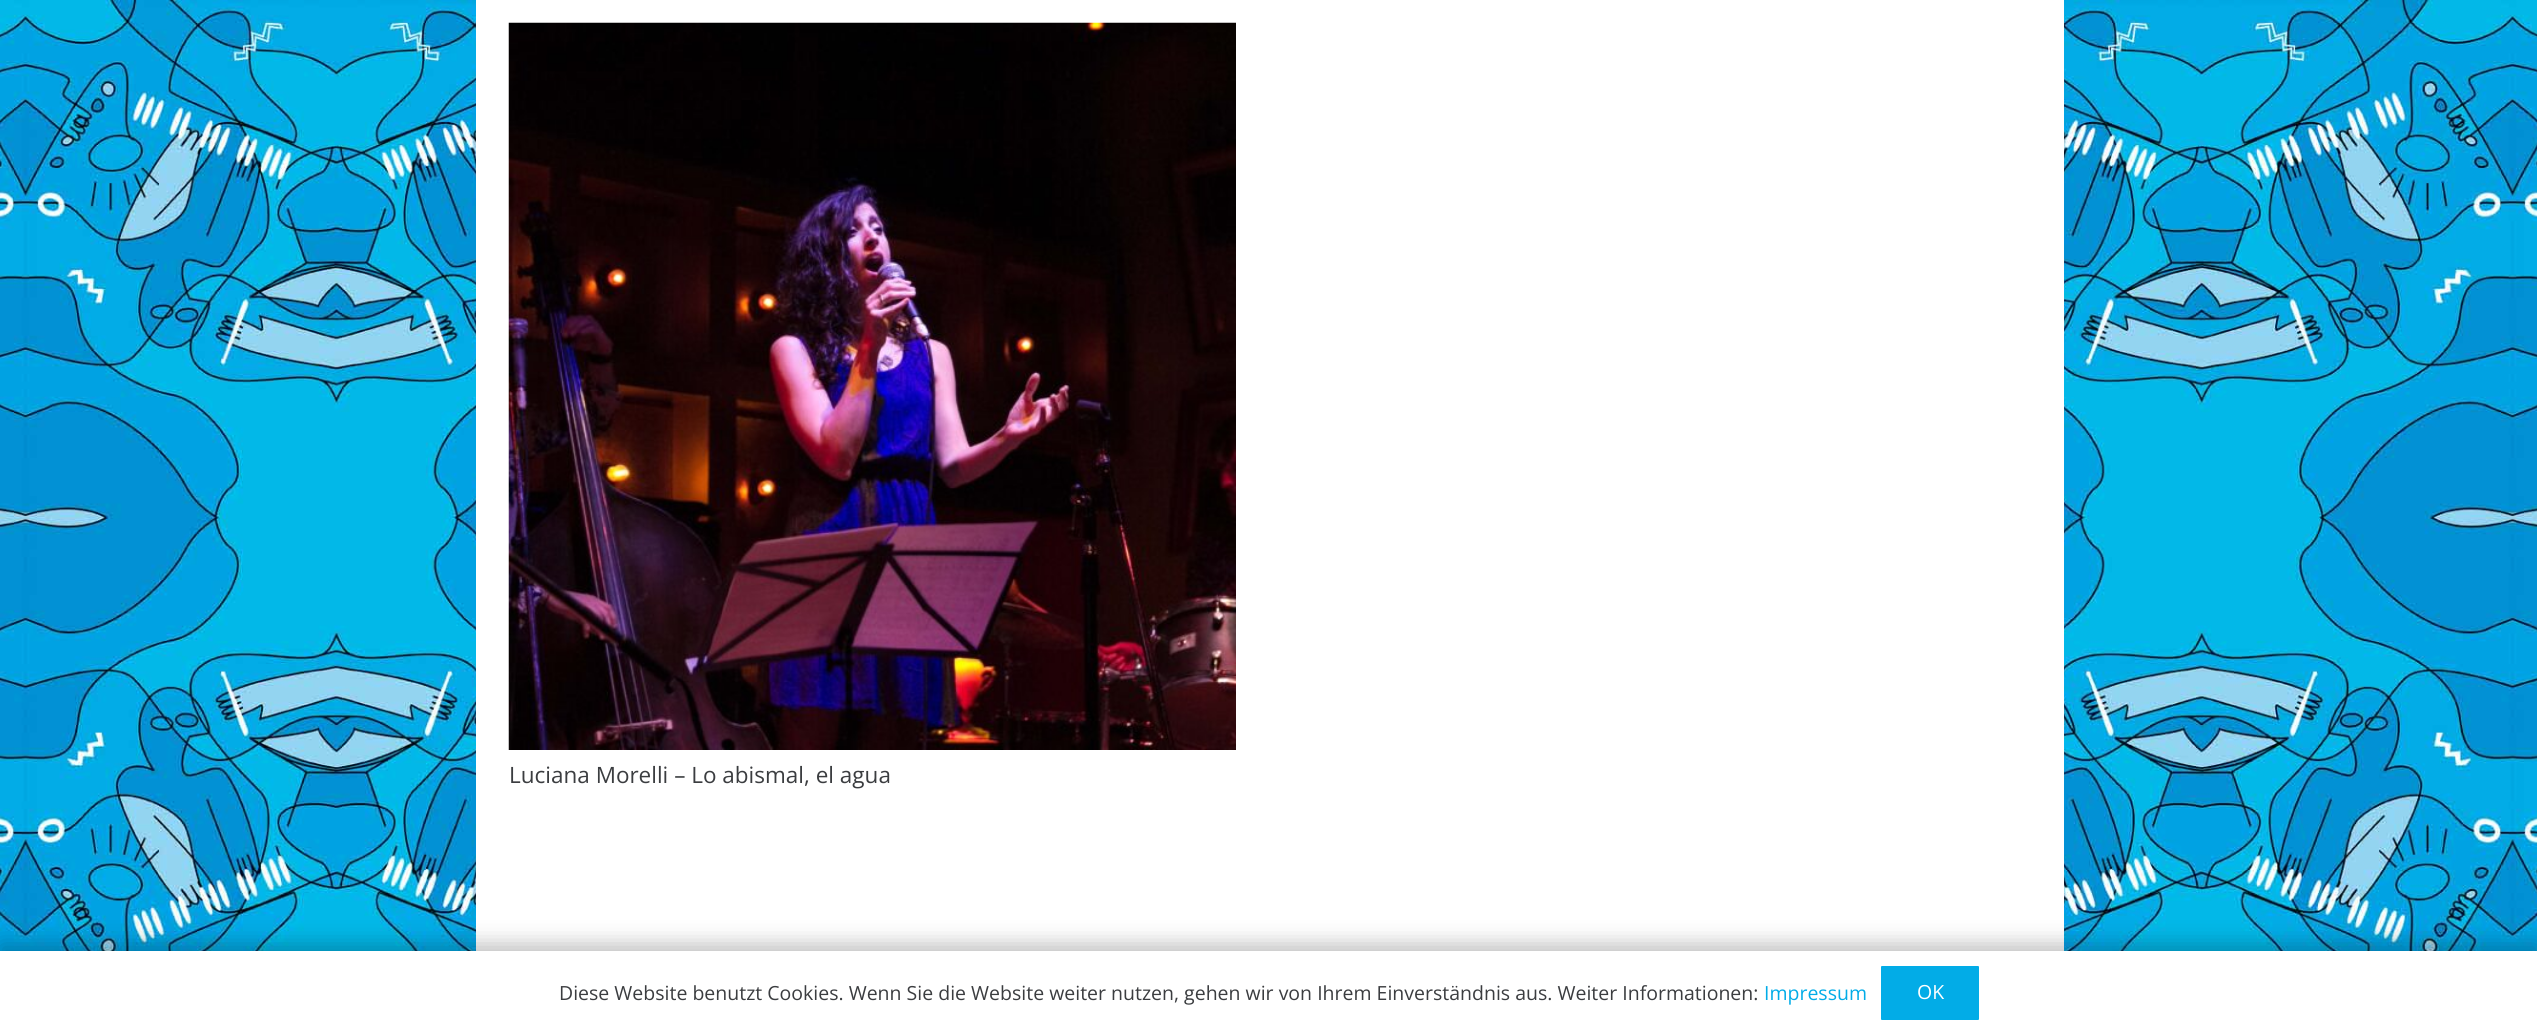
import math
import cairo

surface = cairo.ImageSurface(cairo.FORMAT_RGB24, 2537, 1035)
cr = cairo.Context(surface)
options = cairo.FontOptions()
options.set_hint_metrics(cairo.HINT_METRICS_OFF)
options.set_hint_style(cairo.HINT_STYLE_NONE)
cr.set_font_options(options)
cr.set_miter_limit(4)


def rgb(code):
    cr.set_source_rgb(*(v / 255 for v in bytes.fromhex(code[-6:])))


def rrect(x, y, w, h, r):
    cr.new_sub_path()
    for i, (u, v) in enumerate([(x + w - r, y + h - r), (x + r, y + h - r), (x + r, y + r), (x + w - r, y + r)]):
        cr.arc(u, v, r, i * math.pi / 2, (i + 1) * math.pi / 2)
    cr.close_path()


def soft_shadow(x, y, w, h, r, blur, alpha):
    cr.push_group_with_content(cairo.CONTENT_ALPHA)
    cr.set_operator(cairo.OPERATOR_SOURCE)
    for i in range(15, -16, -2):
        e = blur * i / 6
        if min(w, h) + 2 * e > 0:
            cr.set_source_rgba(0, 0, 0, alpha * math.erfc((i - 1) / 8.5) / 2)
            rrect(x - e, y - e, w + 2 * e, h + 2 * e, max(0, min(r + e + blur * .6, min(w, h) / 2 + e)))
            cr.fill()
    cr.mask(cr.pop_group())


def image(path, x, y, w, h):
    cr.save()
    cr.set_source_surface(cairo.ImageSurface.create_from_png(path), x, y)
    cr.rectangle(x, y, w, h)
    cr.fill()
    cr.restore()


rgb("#ffffff")
cr.paint()
image("img/1.png", 0, 0, 2537, 951)
rgb("#ffffff")
cr.rectangle(476, 0, 1588, 951)
cr.fill()
image("img/2.png", 508, 22, 728, 728)
rgb("#000000")
soft_shadow(0, 944, 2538, 84, 0, 11, 0.25)
rgb("#ffffff")
cr.rectangle(0, 951, 2537, 84)
cr.fill()
rgb("#02ace7")
rrect(1881, 966, 98, 54, 1)
cr.fill()
cr.select_font_face("Open Sans")
cr.set_font_size(22.5)
rgb("#3b3d40")
cr.move_to(509, 783)
cr.show_text("Luciana Morelli – Lo abismal, el agua")
cr.set_font_size(19.5)
cr.move_to(559, 1000)
cr.show_text("Diese Website benutzt Cookies. Wenn Sie die Website weiter nutzen, gehen wir von Ihrem Einverständnis aus. Weiter Informationen:")
rgb("#02ace7")
cr.move_to(1764, 1000)
cr.show_text("Impressum")
rgb("#ffffff")
cr.move_to(1917, 999)
cr.show_text("OK")
surface.write_to_png("page.png")
